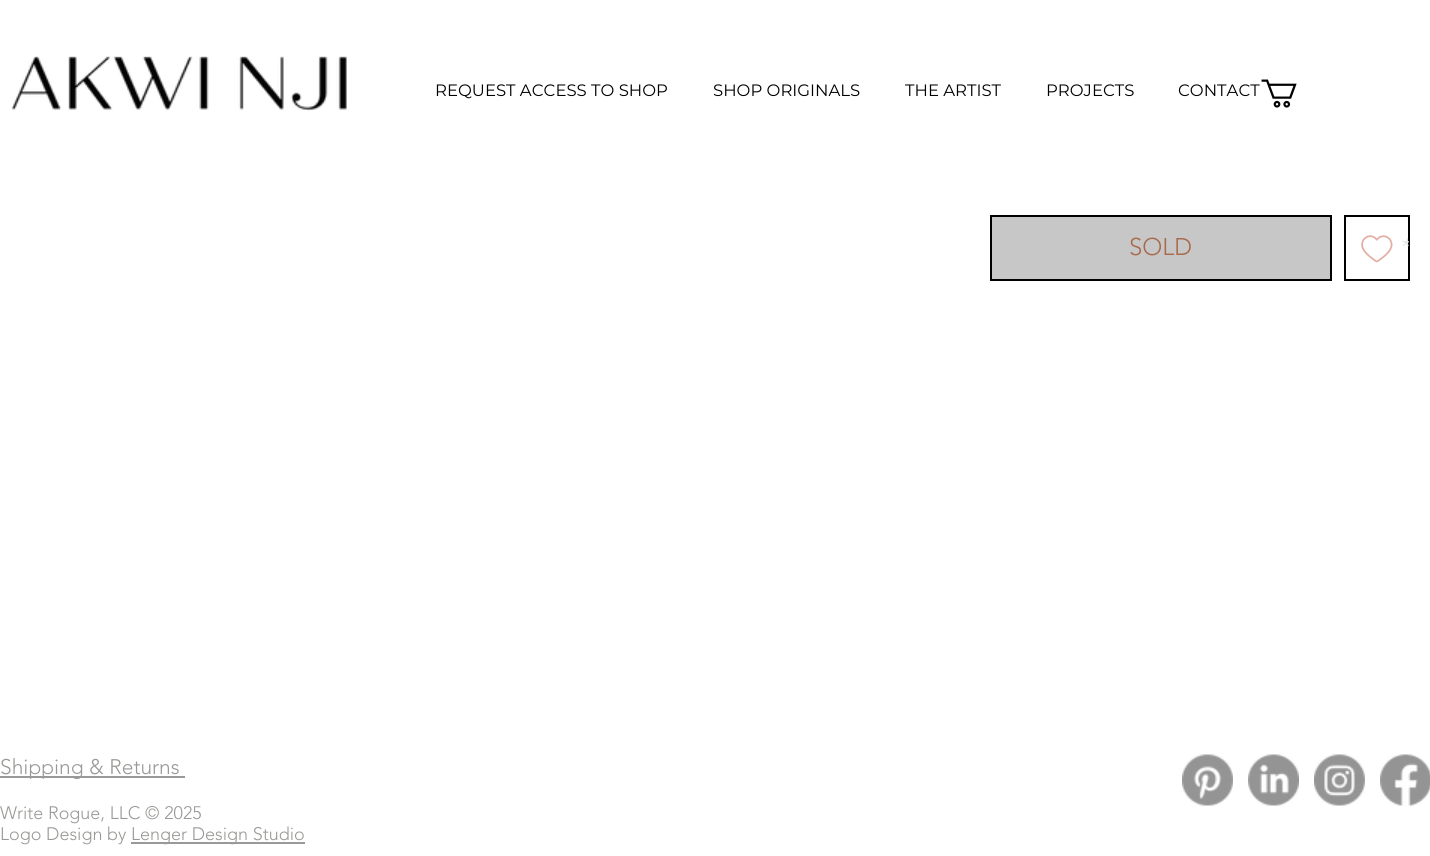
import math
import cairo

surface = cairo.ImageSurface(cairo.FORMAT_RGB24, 1430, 856)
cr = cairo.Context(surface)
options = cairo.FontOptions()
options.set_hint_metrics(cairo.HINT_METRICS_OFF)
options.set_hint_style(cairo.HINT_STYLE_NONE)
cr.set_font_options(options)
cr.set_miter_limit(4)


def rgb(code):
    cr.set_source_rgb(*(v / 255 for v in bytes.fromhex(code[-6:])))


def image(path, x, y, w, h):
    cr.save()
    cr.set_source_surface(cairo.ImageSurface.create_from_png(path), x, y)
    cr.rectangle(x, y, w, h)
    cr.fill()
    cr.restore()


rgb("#ffffff")
cr.paint()
image("img/1.png", 11, 56, 336, 55)
image("img/2.png", 1261, 79, 36, 29)
rgb("#c7c7c7")
cr.rectangle(991, 216, 340, 64)
cr.fill_preserve()
rgb("#000000")
cr.stroke()
cr.rectangle(1345, 216, 64, 64)
cr.stroke()
image("img/3.png", 1361, 235, 32, 28)
rgb("#999997")
cr.rectangle(0, 776, 185, 2)
cr.fill()
image("img/4.png", 1182, 754, 51, 52)
image("img/5.png", 1248, 754, 51, 52)
image("img/6.png", 1314, 754, 51, 52)
image("img/7.png", 1380, 754, 50, 52)
cr.rectangle(131, 842, 174, 2)
cr.fill()
cr.select_font_face("Montserrat")
cr.set_font_size(16.5)
rgb("#000000")
for x, y, s in [
    (435, 96, "REQUEST ACCESS TO SHOP"),
    (713, 96, "SHOP ORIGINALS"),
    (905, 96, "THE ARTIST"),
    (1046, 96, "PROJECTS"),
    (1178, 96, "CONTACT"),
]:
    cr.move_to(x, y)
    cr.show_text(s)
cr.select_font_face("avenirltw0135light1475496 Light")
cr.set_font_size(24)
rgb("#a8694c")
cr.move_to(1129, 255)
cr.show_text("SOLD")
cr.save()
cr.rectangle(1346, 224, 63, 48)
cr.clip()
cr.select_font_face("avenirltw0135light1475496 Light", cairo.FONT_SLANT_ITALIC)
rgb("#e5e5e5")
cr.move_to(1398, 255)
cr.show_text("*")
cr.restore()
cr.set_font_size(21)
rgb("#999997")
cr.move_to(0, 774)
cr.show_text("Shipping & Returns")
cr.set_font_size(18)
for x, y, s in [
    (0, 819, "Write Rogue, LLC © 2025"),
    (0, 840, "Logo Design by"),
    (131, 840, "Lenger Design Studio"),
]:
    cr.move_to(x, y)
    cr.show_text(s)
surface.write_to_png("page.png")
